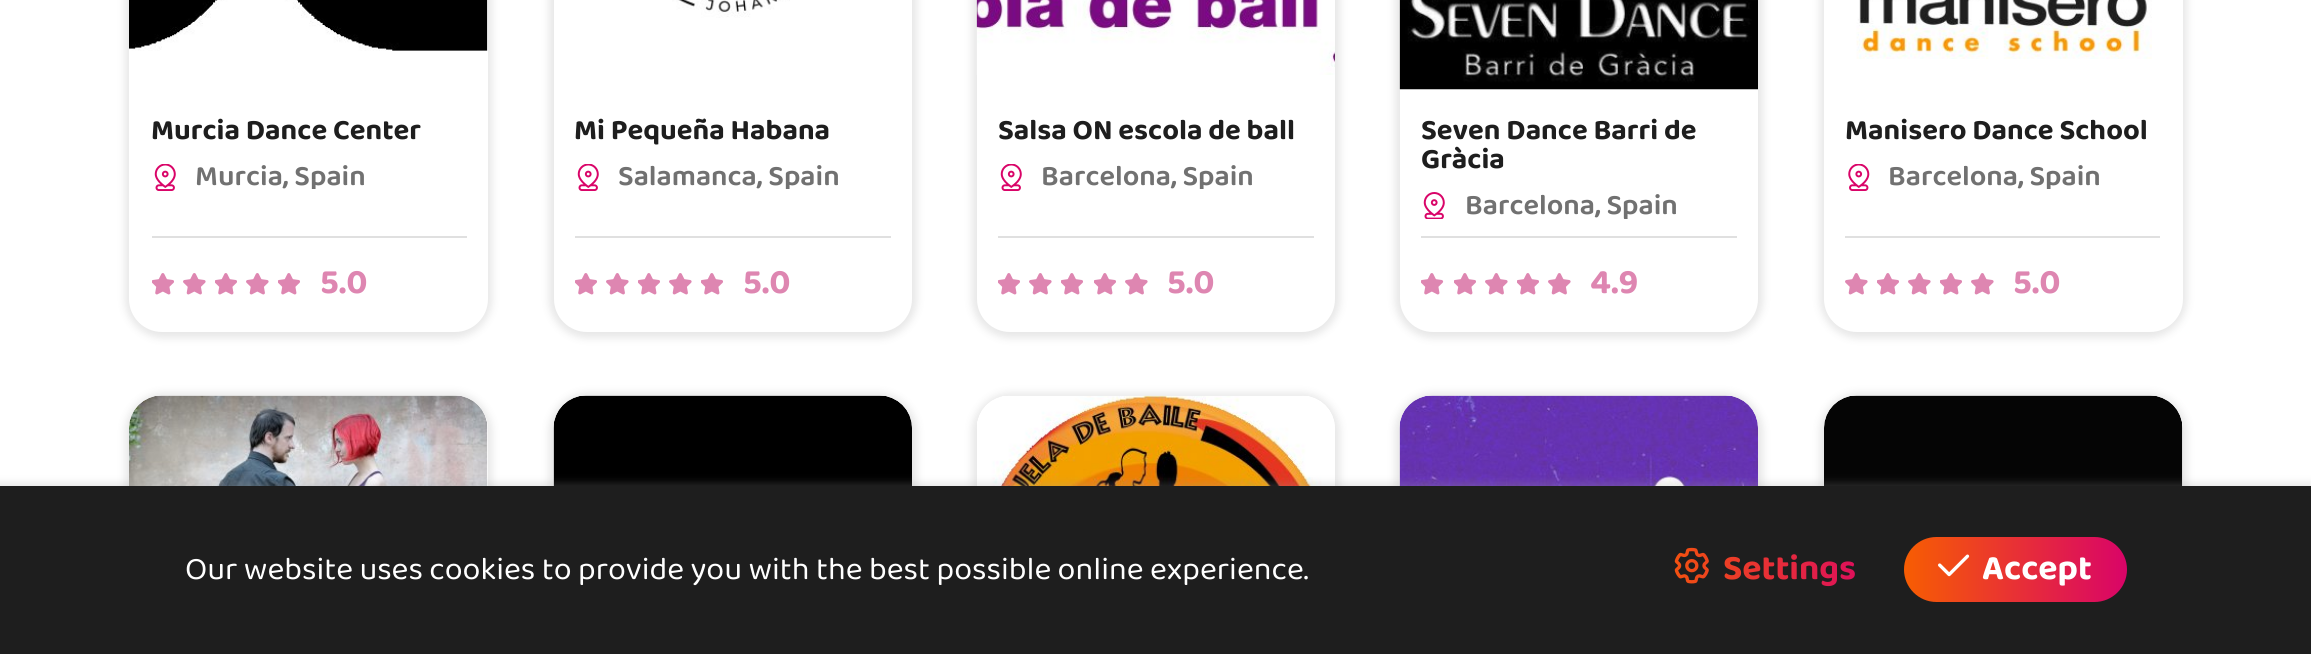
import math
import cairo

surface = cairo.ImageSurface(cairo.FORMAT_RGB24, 2311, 654)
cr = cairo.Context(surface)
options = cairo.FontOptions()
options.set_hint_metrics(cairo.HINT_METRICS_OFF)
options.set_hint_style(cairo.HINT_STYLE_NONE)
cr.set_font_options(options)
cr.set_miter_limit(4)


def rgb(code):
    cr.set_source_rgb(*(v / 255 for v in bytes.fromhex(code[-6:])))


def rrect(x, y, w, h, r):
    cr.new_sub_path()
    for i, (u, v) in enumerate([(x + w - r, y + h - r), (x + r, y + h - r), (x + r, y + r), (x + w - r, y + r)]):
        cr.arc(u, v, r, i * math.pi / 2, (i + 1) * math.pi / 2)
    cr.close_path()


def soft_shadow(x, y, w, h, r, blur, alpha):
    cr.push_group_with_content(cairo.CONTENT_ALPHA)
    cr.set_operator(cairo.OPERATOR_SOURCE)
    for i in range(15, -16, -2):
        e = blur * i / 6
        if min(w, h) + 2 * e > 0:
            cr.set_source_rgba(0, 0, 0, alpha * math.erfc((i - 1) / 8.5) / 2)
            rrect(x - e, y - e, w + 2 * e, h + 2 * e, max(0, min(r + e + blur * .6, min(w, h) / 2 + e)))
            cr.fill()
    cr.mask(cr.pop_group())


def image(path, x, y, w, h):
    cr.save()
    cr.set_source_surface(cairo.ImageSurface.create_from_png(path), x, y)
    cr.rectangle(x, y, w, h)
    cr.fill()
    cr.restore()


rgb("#ffffff")
cr.paint()
rgb("#9e9e9e")
soft_shadow(125, -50, 367, 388, 38, 4, 0.25)
rgb("#ffffff")
rrect(129, -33, 359, 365, 33)
cr.fill()
image("img/1.png", 129, 0, 359, 51)
image("img/2.png", 154, 164, 22, 27)
rgb("#e0e0e0")
cr.rectangle(152, 236, 315, 2)
cr.fill()
image("img/3.png", 152, 273, 22, 22)
image("img/4.png", 183, 273, 23, 22)
image("img/3.png", 215, 273, 22, 22)
image("img/4.png", 246, 273, 23, 22)
image("img/3.png", 278, 273, 22, 22)
rgb("#9e9e9e")
soft_shadow(549, -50, 368, 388, 38, 4, 0.25)
rgb("#ffffff")
rrect(554, -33, 358, 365, 33)
cr.fill()
image("img/5.png", 672, 0, 118, 18)
image("img/2.png", 577, 164, 22, 27)
rgb("#e0e0e0")
cr.rectangle(575, 236, 316, 2)
cr.fill()
image("img/3.png", 575, 273, 22, 22)
image("img/4.png", 606, 273, 23, 22)
image("img/3.png", 638, 273, 22, 22)
image("img/4.png", 669, 273, 23, 22)
image("img/3.png", 701, 273, 22, 22)
rgb("#9e9e9e")
soft_shadow(972, -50, 368, 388, 38, 4, 0.25)
rgb("#ffffff")
rrect(977, -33, 358, 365, 33)
cr.fill()
image("img/6.png", 976, 0, 359, 75)
image("img/2.png", 1000, 164, 22, 27)
rgb("#e0e0e0")
cr.rectangle(998, 236, 316, 2)
cr.fill()
image("img/3.png", 998, 273, 22, 22)
image("img/4.png", 1029, 273, 23, 22)
image("img/3.png", 1061, 273, 22, 22)
image("img/3.png", 1094, 273, 22, 22)
image("img/4.png", 1125, 273, 23, 22)
rgb("#9e9e9e")
soft_shadow(1395, -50, 368, 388, 38, 4, 0.25)
rgb("#ffffff")
rrect(1400, -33, 358, 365, 33)
cr.fill()
image("img/7.png", 1399, 0, 359, 90)
image("img/8.png", 1423, 192, 22, 27)
rgb("#e0e0e0")
cr.rectangle(1421, 236, 316, 2)
cr.fill()
image("img/9.png", 1421, 273, 23, 22)
image("img/3.png", 1454, 273, 22, 22)
image("img/4.png", 1485, 273, 23, 22)
image("img/3.png", 1517, 273, 22, 22)
image("img/4.png", 1548, 273, 23, 22)
rgb("#9e9e9e")
soft_shadow(1820, -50, 367, 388, 38, 4, 0.25)
rgb("#ffffff")
rrect(1824, -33, 359, 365, 33)
cr.fill()
image("img/10.png", 1856, 0, 296, 59)
image("img/11.png", 1848, 164, 22, 27)
rgb("#e0e0e0")
cr.rectangle(1845, 236, 315, 2)
cr.fill()
image("img/4.png", 1845, 273, 23, 22)
image("img/3.png", 1877, 273, 22, 22)
image("img/4.png", 1908, 273, 23, 22)
image("img/3.png", 1940, 273, 22, 22)
image("img/4.png", 1971, 273, 23, 22)
rgb("#9e9e9e")
soft_shadow(125, 393, 367, 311, 38, 4, 0.25)
rgb("#ffffff")
rrect(129, 396, 359, 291, 33)
cr.fill()
image("img/12.png", 129, 395, 359, 91)
rgb("#9e9e9e")
soft_shadow(549, 393, 368, 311, 38, 4, 0.25)
rgb("#ffffff")
rrect(554, 396, 358, 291, 33)
cr.fill()
image("img/13.png", 553, 395, 359, 91)
rgb("#9e9e9e")
soft_shadow(972, 393, 368, 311, 38, 4, 0.25)
rgb("#ffffff")
rrect(977, 396, 358, 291, 33)
cr.fill()
image("img/14.png", 977, 395, 358, 91)
rgb("#9e9e9e")
soft_shadow(1395, 393, 368, 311, 38, 4, 0.25)
rgb("#ffffff")
rrect(1400, 396, 358, 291, 33)
cr.fill()
image("img/15.png", 1399, 395, 359, 91)
rgb("#9e9e9e")
soft_shadow(1820, 393, 367, 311, 38, 4, 0.25)
rgb("#ffffff")
rrect(1824, 396, 359, 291, 33)
cr.fill()
image("img/16.png", 1824, 395, 359, 91)
rgb("#9e9e9e")
soft_shadow(-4, 483, 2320, 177, 0, 4, 0.25)
rgb("#1e1e1e")
cr.rectangle(0, 486, 2311, 168)
cr.fill()
image("img/17.png", 1674, 547, 35, 37)
gradient = cairo.LinearGradient(1904, 569, 2127, 569)
gradient.add_color_stop_rgba(0, 0.969, 0.365, 0.008, 1)
gradient.add_color_stop_rgba(1, 0.851, 0.016, 0.408, 1)
cr.set_source(gradient)
rrect(1904, 537, 223, 65, 32.5)
cr.fill()
image("img/18.png", 1938, 554, 32, 23)
cr.select_font_face("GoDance", cairo.FONT_SLANT_NORMAL, cairo.FONT_WEIGHT_BOLD)
cr.set_font_size(29.1)
rgb("#1e1e1e")
cr.move_to(151, 139)
cr.show_text("Murcia Dance Center")
cr.save()
cr.rectangle(195, 164, 170, 25)
cr.clip()
cr.select_font_face("Baloo Thambi 2 SemiBold")
rgb("#717171")
cr.move_to(195, 185)
cr.show_text("Murcia, Spain")
cr.restore()
cr.set_font_size(35.5)
rgb("#de86b1")
cr.move_to(320, 293)
cr.show_text("5.0")
cr.set_font_size(29.1)
rgb("#1e1e1e")
cr.move_to(574, 139)
cr.show_text("Mi Pequeña Habana")
cr.save()
cr.rectangle(618, 164, 222, 25)
cr.clip()
cr.select_font_face("Baloo Thambi 2 SemiBold")
rgb("#717171")
cr.move_to(618, 185)
cr.show_text("Salamanca, Spain")
cr.restore()
cr.set_font_size(35.5)
rgb("#de86b1")
cr.move_to(743, 293)
cr.show_text("5.0")
cr.set_font_size(29.1)
rgb("#1e1e1e")
cr.move_to(998, 139)
cr.show_text("Salsa ON escola de ball")
cr.save()
cr.rectangle(1041, 164, 213, 25)
cr.clip()
cr.select_font_face("Baloo Thambi 2 SemiBold")
rgb("#717171")
cr.move_to(1041, 185)
cr.show_text("Barcelona, Spain")
cr.restore()
cr.set_font_size(35.5)
rgb("#de86b1")
cr.move_to(1167, 293)
cr.show_text("5.0")
cr.set_font_size(29.1)
rgb("#1e1e1e")
cr.move_to(1421, 139)
cr.show_text("Seven Dance Barri de")
cr.move_to(1421, 168)
cr.show_text("Gràcia")
cr.save()
cr.rectangle(1466, 194, 213, 25)
cr.clip()
cr.select_font_face("Baloo Thambi 2 SemiBold")
rgb("#717171")
cr.move_to(1465, 214)
cr.show_text("Barcelona, Spain")
cr.restore()
cr.set_font_size(35.5)
rgb("#de86b1")
cr.move_to(1590, 293)
cr.show_text("4.9")
cr.set_font_size(29.1)
rgb("#1e1e1e")
cr.move_to(1845, 139)
cr.show_text("Manisero Dance School")
cr.save()
cr.rectangle(1889, 164, 213, 25)
cr.clip()
cr.select_font_face("Baloo Thambi 2 SemiBold")
rgb("#717171")
cr.move_to(1888, 185)
cr.show_text("Barcelona, Spain")
cr.restore()
cr.set_font_size(35.5)
rgb("#de86b1")
cr.move_to(2013, 293)
cr.show_text("5.0")
cr.select_font_face("GoDance")
cr.set_font_size(32.35)
rgb("#ffffff")
cr.move_to(185, 579)
cr.show_text("Our website uses cookies to provide you with the best possible online experience.")
cr.select_font_face("GoDance", cairo.FONT_SLANT_NORMAL, cairo.FONT_WEIGHT_BOLD)
cr.set_font_size(35.5)
gradient = cairo.LinearGradient(1640, 570, 1891, 570)
gradient.add_color_stop_rgba(0, 0.969, 0.365, 0.008, 1)
gradient.add_color_stop_rgba(1, 0.851, 0.016, 0.408, 1)
cr.set_source(gradient)
cr.move_to(1723, 579)
cr.show_text("Settings")
rgb("#ffffff")
cr.move_to(1982, 579)
cr.show_text("Accept")
surface.write_to_png("page.png")
